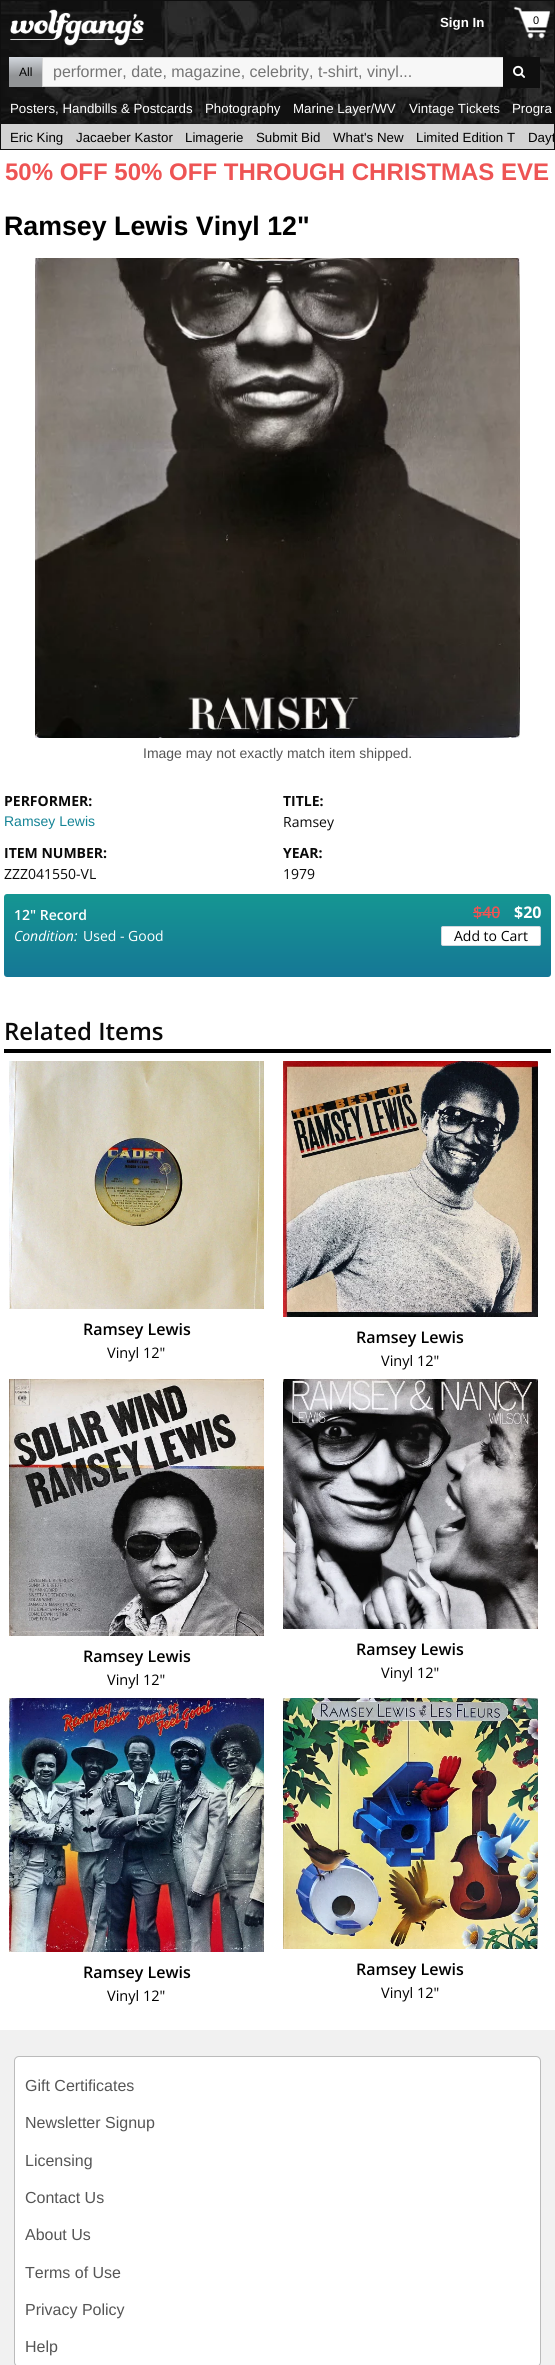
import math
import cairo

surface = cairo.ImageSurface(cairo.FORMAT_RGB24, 555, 2365)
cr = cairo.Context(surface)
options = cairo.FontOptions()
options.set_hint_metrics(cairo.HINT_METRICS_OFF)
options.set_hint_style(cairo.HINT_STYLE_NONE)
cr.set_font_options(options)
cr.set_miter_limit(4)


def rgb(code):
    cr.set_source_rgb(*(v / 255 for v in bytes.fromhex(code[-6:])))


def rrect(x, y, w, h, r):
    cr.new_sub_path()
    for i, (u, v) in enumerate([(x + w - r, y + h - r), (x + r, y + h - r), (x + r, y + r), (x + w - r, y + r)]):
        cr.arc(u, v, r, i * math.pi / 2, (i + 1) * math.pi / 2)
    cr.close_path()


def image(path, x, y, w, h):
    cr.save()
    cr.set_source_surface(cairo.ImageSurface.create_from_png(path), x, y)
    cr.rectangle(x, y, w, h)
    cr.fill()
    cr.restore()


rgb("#ffffff")
cr.paint()
image("img/1.png", 1, 1, 553, 123)
cr.rectangle(0.5, 0.5, 554, 149)
rgb("#0f0f0f")
cr.set_line_width(1)
cr.stroke()
image("img/2.png", 10, 9, 134, 37)
image("img/3.png", 513, 6, 37, 33)
gradient = cairo.LinearGradient(25, 57, 26, 87)
gradient.add_color_stop_rgba(0, 0.824, 0.843, 0.867, 1)
gradient.add_color_stop_rgba(0.61, 0.573, 0.58, 0.588, 1)
cr.set_source(gradient)
cr.rectangle(9, 57, 33, 30)
cr.fill()
for x, y, w, h, color in [
    (43, 58, 460, 28, "#f7f7f7"),
    (42, 57, 461, 1, "#d7d7d7"),
    (42, 86, 461, 1, "#d7d7d7"),
    (42, 57, 1, 30, "#d7d7d7"),
    (503, 57, 37, 31, "#0f0f0f"),
]:
    rgb(color)
    cr.rectangle(x, y, w, h)
    cr.fill()
image("img/4.png", 513, 65, 12, 13)
rgb("#d3d3d3")
cr.rectangle(1, 124, 553, 25)
cr.fill()
image("img/5.png", 35, 258, 485, 480)
gradient = cairo.LinearGradient(278, 977, 278, 894)
gradient.add_color_stop_rgba(0, 0.082, 0.467, 0.588, 1)
gradient.add_color_stop_rgba(1, 0.082, 0.588, 0.573, 1)
cr.set_source(gradient)
rrect(4, 894, 547, 83, 3)
cr.fill()
rgb("#ee5454")
cr.rectangle(473, 912, 27, 1)
cr.fill()
rgb("#ffffff")
rrect(441.5, 926.5, 99, 19, 1.5)
cr.fill_preserve()
rgb("#d2d7dd")
cr.stroke()
rgb("#000000")
cr.rectangle(4, 1049, 547, 4)
cr.fill()
image("img/6.png", 9, 1061, 255, 248)
image("img/7.png", 283, 1061, 255, 256)
image("img/8.png", 9, 1379, 255, 257)
image("img/9.png", 283, 1379, 255, 250)
image("img/10.png", 9, 1698, 255, 254)
image("img/11.png", 283, 1698, 255, 251)
rgb("#f1f1f1")
cr.rectangle(0, 2030, 555, 335)
cr.fill()
rgb("#ffffff")
rrect(14.5, 2056.5, 526, 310, 4.5)
cr.fill_preserve()
rgb("#bbbbbb")
cr.stroke()
cr.select_font_face("Liberation Sans", cairo.FONT_SLANT_NORMAL, cairo.FONT_WEIGHT_BOLD)
cr.set_font_size(13.3)
rgb("#ffffff")
cr.move_to(440, 27)
cr.show_text("Sign In")
cr.select_font_face("Liberation Sans")
cr.set_font_size(11)
rgb("#000000")
cr.move_to(533, 24)
cr.show_text("0")
cr.set_font_size(12)
cr.move_to(19, 76)
cr.show_text("All")
cr.set_font_size(16)
rgb("#757575")
cr.move_to(53, 77)
cr.show_text("performer, date, magazine, celebrity, t-shirt, vinyl...")
cr.set_font_size(13.3)
rgb("#ffffff")
for x, y, s in [
    (10, 113, "Posters, Handbills & Postcards"),
    (205, 113, "Photography"),
    (293, 113, "Marine Layer/WV"),
    (409, 113, "Vintage Tickets"),
    (512, 113, "Progra"),
]:
    cr.move_to(x, y)
    cr.show_text(s)
rgb("#000000")
for x, y, s in [
    (10, 142, "Eric King"),
    (76, 142, "Jacaeber Kastor"),
    (185, 142, "Limagerie"),
    (256, 142, "Submit Bid"),
    (333, 142, "What's New"),
    (416, 142, "Limited Edition T"),
]:
    cr.move_to(x, y)
    cr.show_text(s)
cr.save()
cr.rectangle(1, 124, 553, 25)
cr.clip()
cr.move_to(528, 142)
cr.show_text("Dayt")
cr.restore()
cr.select_font_face("Liberation Sans", cairo.FONT_SLANT_NORMAL, cairo.FONT_WEIGHT_BOLD)
cr.set_font_size(24)
rgb("#ee5454")
cr.move_to(5, 180)
cr.show_text("50% OFF 50% OFF THROUGH CHRISTMAS EVE")
cr.set_font_size(26.75)
rgb("#000000")
cr.move_to(4, 235)
cr.show_text("Ramsey Lewis Vinyl 12\"")
cr.select_font_face("Liberation Sans")
cr.set_font_size(14)
rgb("#555555")
cr.move_to(143, 758)
cr.show_text("Image may not exactly match item shipped.")
cr.select_font_face("Open Sans", cairo.FONT_SLANT_NORMAL, cairo.FONT_WEIGHT_BOLD)
rgb("#0a0a0a")
cr.move_to(4, 806)
cr.show_text("PERFORMER:")
cr.select_font_face("Liberation Sans")
rgb("#158496")
cr.move_to(4, 826)
cr.show_text("Ramsey Lewis")
cr.select_font_face("Open Sans", cairo.FONT_SLANT_NORMAL, cairo.FONT_WEIGHT_BOLD)
rgb("#0a0a0a")
cr.move_to(283, 806)
cr.show_text("TITLE:")
cr.select_font_face("Open Sans")
cr.move_to(283, 827)
cr.show_text("Ramsey")
cr.select_font_face("Open Sans", cairo.FONT_SLANT_NORMAL, cairo.FONT_WEIGHT_BOLD)
cr.move_to(4, 858)
cr.show_text("ITEM NUMBER:")
cr.select_font_face("Open Sans")
cr.move_to(4, 879)
cr.show_text("ZZZ041550-VL")
cr.select_font_face("Open Sans", cairo.FONT_SLANT_NORMAL, cairo.FONT_WEIGHT_BOLD)
cr.move_to(283, 858)
cr.show_text("YEAR:")
cr.select_font_face("Open Sans")
cr.move_to(283, 879)
cr.show_text("1979")
cr.select_font_face("Open Sans SemiBold")
rgb("#ffffff")
cr.move_to(14, 920)
cr.show_text("12\" Record")
cr.set_font_size(16)
rgb("#ee5454")
cr.move_to(473, 918)
cr.show_text("$40")
cr.select_font_face("Open Sans", cairo.FONT_SLANT_NORMAL, cairo.FONT_WEIGHT_BOLD)
rgb("#ffffff")
cr.move_to(514, 918)
cr.show_text("$20")
cr.select_font_face("Open Sans", cairo.FONT_SLANT_ITALIC)
cr.set_font_size(14)
cr.move_to(14, 941)
cr.show_text("Condition:")
cr.select_font_face("Open Sans")
cr.move_to(83, 941)
cr.show_text("Used - Good")
rgb("#000000")
cr.move_to(454, 941)
cr.show_text("Add to Cart")
cr.select_font_face("Open Sans SemiBold")
cr.set_font_size(24)
rgb("#0a0a0a")
cr.move_to(4, 1040)
cr.show_text("Related Items")
cr.set_font_size(16)
rgb("#000000")
cr.move_to(83, 1335)
cr.show_text("Ramsey Lewis")
cr.select_font_face("Open Sans")
cr.set_font_size(14.5)
cr.move_to(107, 1358)
cr.show_text("Vinyl 12\"")
cr.select_font_face("Open Sans SemiBold")
cr.set_font_size(16)
cr.move_to(356, 1343)
cr.show_text("Ramsey Lewis")
cr.select_font_face("Open Sans")
cr.set_font_size(14.5)
cr.move_to(381, 1366)
cr.show_text("Vinyl 12\"")
cr.select_font_face("Open Sans SemiBold")
cr.set_font_size(16)
cr.move_to(83, 1662)
cr.show_text("Ramsey Lewis")
cr.select_font_face("Open Sans")
cr.set_font_size(14.5)
cr.move_to(107, 1685)
cr.show_text("Vinyl 12\"")
cr.select_font_face("Open Sans SemiBold")
cr.set_font_size(16)
cr.move_to(356, 1655)
cr.show_text("Ramsey Lewis")
cr.select_font_face("Open Sans")
cr.set_font_size(14.5)
cr.move_to(381, 1678)
cr.show_text("Vinyl 12\"")
cr.select_font_face("Open Sans SemiBold")
cr.set_font_size(16)
cr.move_to(83, 1978)
cr.show_text("Ramsey Lewis")
cr.select_font_face("Open Sans")
cr.set_font_size(14.5)
cr.move_to(107, 2001)
cr.show_text("Vinyl 12\"")
cr.select_font_face("Open Sans SemiBold")
cr.set_font_size(16)
cr.move_to(356, 1975)
cr.show_text("Ramsey Lewis")
cr.select_font_face("Open Sans")
cr.set_font_size(14.5)
cr.move_to(381, 1998)
cr.show_text("Vinyl 12\"")
cr.select_font_face("Liberation Sans")
cr.set_font_size(16)
rgb("#555555")
for x, y, s in [
    (25, 2091, "Gift Certificates"),
    (25, 2128, "Newsletter Signup"),
    (25, 2166, "Licensing"),
    (25, 2203, "Contact Us"),
    (25, 2240, "About Us"),
    (25, 2278, "Terms of Use"),
    (25, 2315, "Privacy Policy"),
    (25, 2352, "Help"),
]:
    cr.move_to(x, y)
    cr.show_text(s)
surface.write_to_png("page.png")
